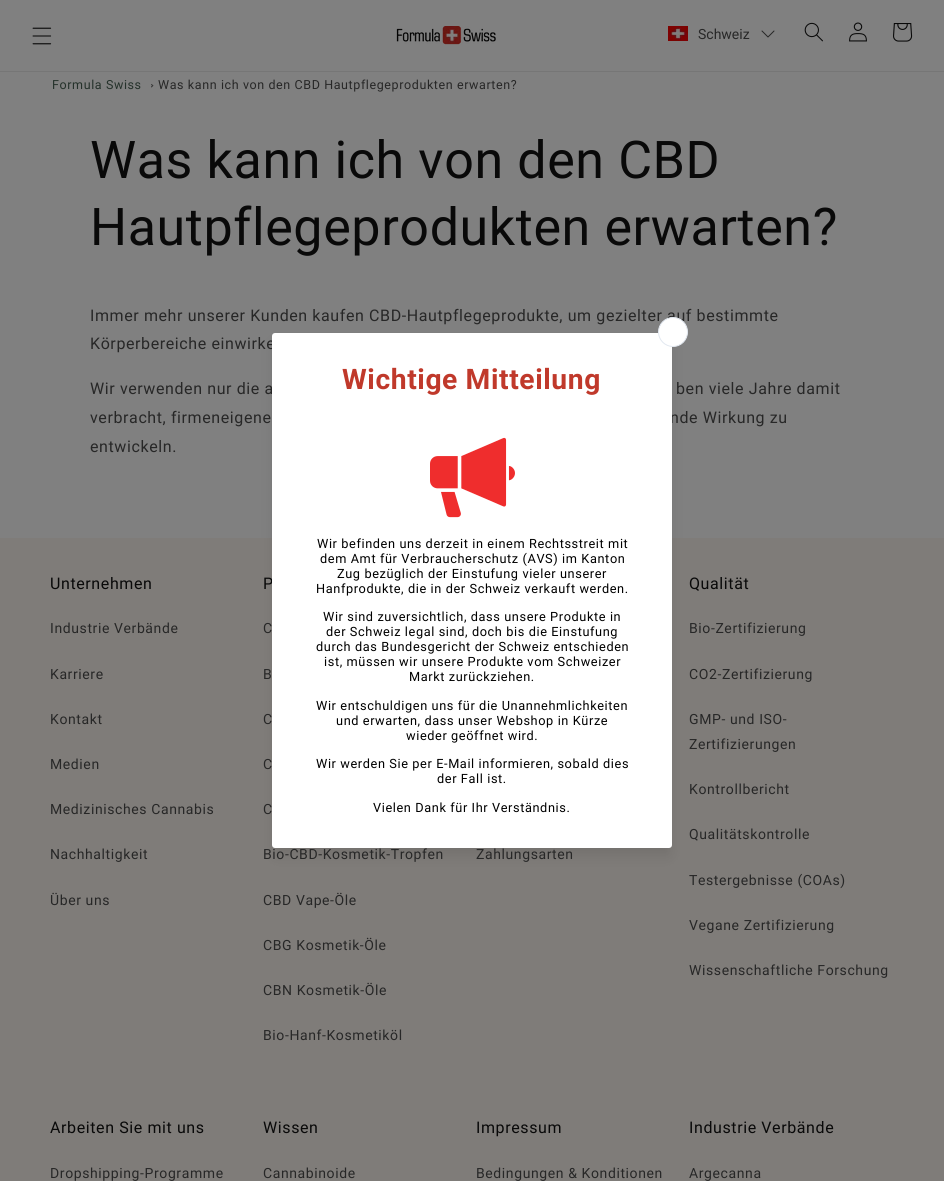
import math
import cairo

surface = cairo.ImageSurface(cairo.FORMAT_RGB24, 944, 1181)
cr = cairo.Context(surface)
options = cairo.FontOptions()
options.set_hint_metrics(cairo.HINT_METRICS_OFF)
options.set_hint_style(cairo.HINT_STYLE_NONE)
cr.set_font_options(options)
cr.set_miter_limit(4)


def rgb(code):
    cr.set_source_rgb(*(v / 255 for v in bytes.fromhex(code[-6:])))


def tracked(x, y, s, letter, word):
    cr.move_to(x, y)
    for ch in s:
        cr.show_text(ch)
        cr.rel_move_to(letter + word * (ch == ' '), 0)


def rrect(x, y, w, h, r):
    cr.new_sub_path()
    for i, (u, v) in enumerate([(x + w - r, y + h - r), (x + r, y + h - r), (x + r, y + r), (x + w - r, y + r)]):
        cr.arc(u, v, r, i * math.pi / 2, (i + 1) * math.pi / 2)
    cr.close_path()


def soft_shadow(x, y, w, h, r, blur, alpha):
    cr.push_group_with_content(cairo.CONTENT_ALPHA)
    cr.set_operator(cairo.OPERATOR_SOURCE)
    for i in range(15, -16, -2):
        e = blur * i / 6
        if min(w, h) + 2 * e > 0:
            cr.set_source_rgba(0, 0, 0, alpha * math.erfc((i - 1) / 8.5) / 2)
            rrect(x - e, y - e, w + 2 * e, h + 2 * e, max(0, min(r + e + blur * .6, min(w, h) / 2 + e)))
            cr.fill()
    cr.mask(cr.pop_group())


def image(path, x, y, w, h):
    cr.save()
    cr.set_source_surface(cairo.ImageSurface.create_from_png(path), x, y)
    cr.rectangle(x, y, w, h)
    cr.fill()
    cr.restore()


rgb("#808080")
cr.paint()
rgb("#767676")
cr.rectangle(0, 71, 944, 1)
cr.fill()
image("img/1.png", 32, 27, 20, 18)
image("img/2.png", 396, 26, 100, 19)
image("img/3.png", 668, 26, 20, 15)
image("img/4.png", 761, 30, 14, 8)
image("img/5.png", 804, 22, 19, 20)
image("img/6.png", 849, 22, 18, 20)
image("img/7.png", 893, 23, 20, 19)
rgb("#272727")
cr.new_path()
cr.move_to(151.5, 84)
cr.line_to(153.5, 85.5)
cr.line_to(152, 85.5)
cr.line_to(151, 84.5)
cr.close_path()
cr.fill()
cr.set_source_rgba(0.035, 0.035, 0.035, 0.75)
cr.new_path()
cr.move_to(153.5, 85.5)
cr.line_to(151.5, 87.5)
cr.line_to(151, 87)
cr.line_to(152, 85.5)
cr.close_path()
cr.fill()
rgb("#7f7c79")
cr.rectangle(0, 538, 944, 643)
cr.fill()
rgb("#000000")
soft_shadow(275, 346, 394, 509, 0, 7.5, 0.1)
cr.select_font_face("Roboto")
cr.set_font_size(14)
rgb("#272727")
cr.move_to(698, 39)
cr.show_text("Schweiz")
cr.set_font_size(12.5)
rgb("#24312a")
tracked(52, 89, "Formula Swiss", 0.6, 0)
rgb("#272727")
tracked(158, 89, "Was kann ich von den CBD Hautpflegeprodukten erwarten?", 0.6, 0)
cr.set_font_size(52)
rgb("#090909")
tracked(90, 178, "Was kann ich von den CBD", 0.6, 0)
tracked(90, 245, "Hautpflegeprodukten erwarten?", 0.6, 0)
cr.set_font_size(16)
rgb("#272727")
for x, y, s in [
    (90, 321, "Immer mehr unserer Kunden kaufen CBD-Hautpflegeprodukte, um gezielter auf bestimmte"),
    (90, 349, "Körperbereiche einwirke"),
    (90, 394, "Wir verwenden nur die a"),
    (676, 394, "ben viele Jahre damit"),
    (90, 423, "verbracht, firmeneigene"),
    (670, 423, "nde Wirkung zu"),
    (90, 452, "entwickeln."),
]:
    tracked(x, y, s, 0.6, 0)
rgb("#090909")
tracked(50, 589, "Unternehmen", 0.6, 0)
cr.set_font_size(14)
rgb("#272727")
for x, y, s in [
    (50, 633, "Industrie Verbände"),
    (50, 679, "Karriere"),
    (50, 724, "Kontakt"),
    (50, 769, "Medien"),
    (50, 814, "Medizinisches Cannabis"),
    (50, 859, "Nachhaltigkeit"),
    (50, 905, "Über uns"),
]:
    tracked(x, y, s, 0.6, 0)
cr.set_font_size(16)
rgb("#090909")
tracked(263, 589, "P", 0.6, 0)
rgb("#ffffff")
rrect(272, 333, 400, 515, 3)
cr.fill()
cr.arc(673, 332, 14.5, 0, 2 * math.pi)
cr.fill_preserve()
rgb("#e2e8f0")
cr.set_line_width(1)
cr.stroke()
image("img/8.png", 430, 437, 85, 81)
cr.set_font_size(12.75)
rgb("#000000")
for x, y, s in [
    (373, 812, "Vielen Dank für Ihr Verständnis."),
    (437, 783, "der Fall ist."),
    (316, 768, "Wir werden Sie per E-Mail informieren, sobald dies"),
    (406, 740, "wieder geöffnet wird."),
    (336, 725, "und erwarten, dass unser Webshop in Kürze"),
    (316, 710, "Wir entschuldigen uns für die Unannehmlichkeiten"),
    (409, 681, "Markt zurückziehen."),
    (324, 666, "ist, müssen wir unsere Produkte vom Schweizer"),
    (316, 651, "durch das Bundesgericht der Schweiz entschieden"),
    (326, 636, "der Schweiz legal sind, doch bis die Einstufung"),
    (323, 621, "Wir sind zuversichtlich, dass unsere Produkte in"),
    (316, 593, "Hanfprodukte, die in der Schweiz verkauft werden."),
    (337, 578, "Zug bezüglich der Einstufung vieler unserer"),
    (320, 563, "dem Amt für Verbraucherschutz (AVS) im Kanton"),
    (317, 548, "Wir befinden uns derzeit in einem Rechtsstreit mit"),
]:
    tracked(x, y, s, 0.6, 0)
cr.select_font_face("Roboto", cairo.FONT_SLANT_NORMAL, cairo.FONT_WEIGHT_BOLD)
cr.set_font_size(28.25)
rgb("#c0392b")
tracked(342, 389, "Wichtige Mitteilung", 0.6, 0)
cr.select_font_face("Roboto")
cr.set_font_size(14)
rgb("#272727")
for x, y, s in [
    (263, 633, "C"),
    (263, 679, "B"),
    (263, 724, "C"),
    (263, 769, "C"),
    (263, 814, "C"),
    (263, 859, "Bio-CBD-Kosmetik-Tropfen"),
    (263, 905, "CBD Vape-Öle"),
    (263, 950, "CBG Kosmetik-Öle"),
    (263, 995, "CBN Kosmetik-Öle"),
    (263, 1040, "Bio-Hanf-Kosmetiköl"),
    (476, 859, "Zahlungsarten"),
]:
    tracked(x, y, s, 0.6, 0)
cr.set_font_size(16)
rgb("#090909")
tracked(689, 589, "Qualität", 0.6, 0)
cr.set_font_size(14)
rgb("#272727")
for x, y, s in [
    (689, 633, "Bio-Zertifizierung"),
    (689, 679, "CO2-Zertifizierung"),
    (689, 724, "GMP- und ISO-"),
    (689, 749, "Zertifizierungen"),
    (689, 794, "Kontrollbericht"),
    (689, 839, "Qualitätskontrolle"),
    (689, 885, "Testergebnisse (COAs)"),
    (689, 930, "Vegane Zertifizierung"),
    (689, 975, "Wissenschaftliche Forschung"),
]:
    tracked(x, y, s, 0.6, 0)
cr.set_font_size(16)
rgb("#090909")
tracked(50, 1133, "Arbeiten Sie mit uns", 0.6, 0)
cr.set_font_size(14)
rgb("#272727")
tracked(50, 1178, "Dropshipping-Programme", 0.6, 0)
cr.set_font_size(16)
rgb("#090909")
tracked(263, 1133, "Wissen", 0.6, 0)
cr.set_font_size(14)
rgb("#272727")
tracked(263, 1178, "Cannabinoide", 0.6, 0)
cr.set_font_size(16)
rgb("#090909")
tracked(476, 1133, "Impressum", 0.6, 0)
cr.set_font_size(14)
rgb("#272727")
tracked(476, 1178, "Bedingungen & Konditionen", 0.6, 0)
cr.set_font_size(16)
rgb("#090909")
tracked(689, 1133, "Industrie Verbände", 0.6, 0)
cr.set_font_size(14)
rgb("#272727")
tracked(689, 1178, "Argecanna", 0.6, 0)
surface.write_to_png("page.png")
